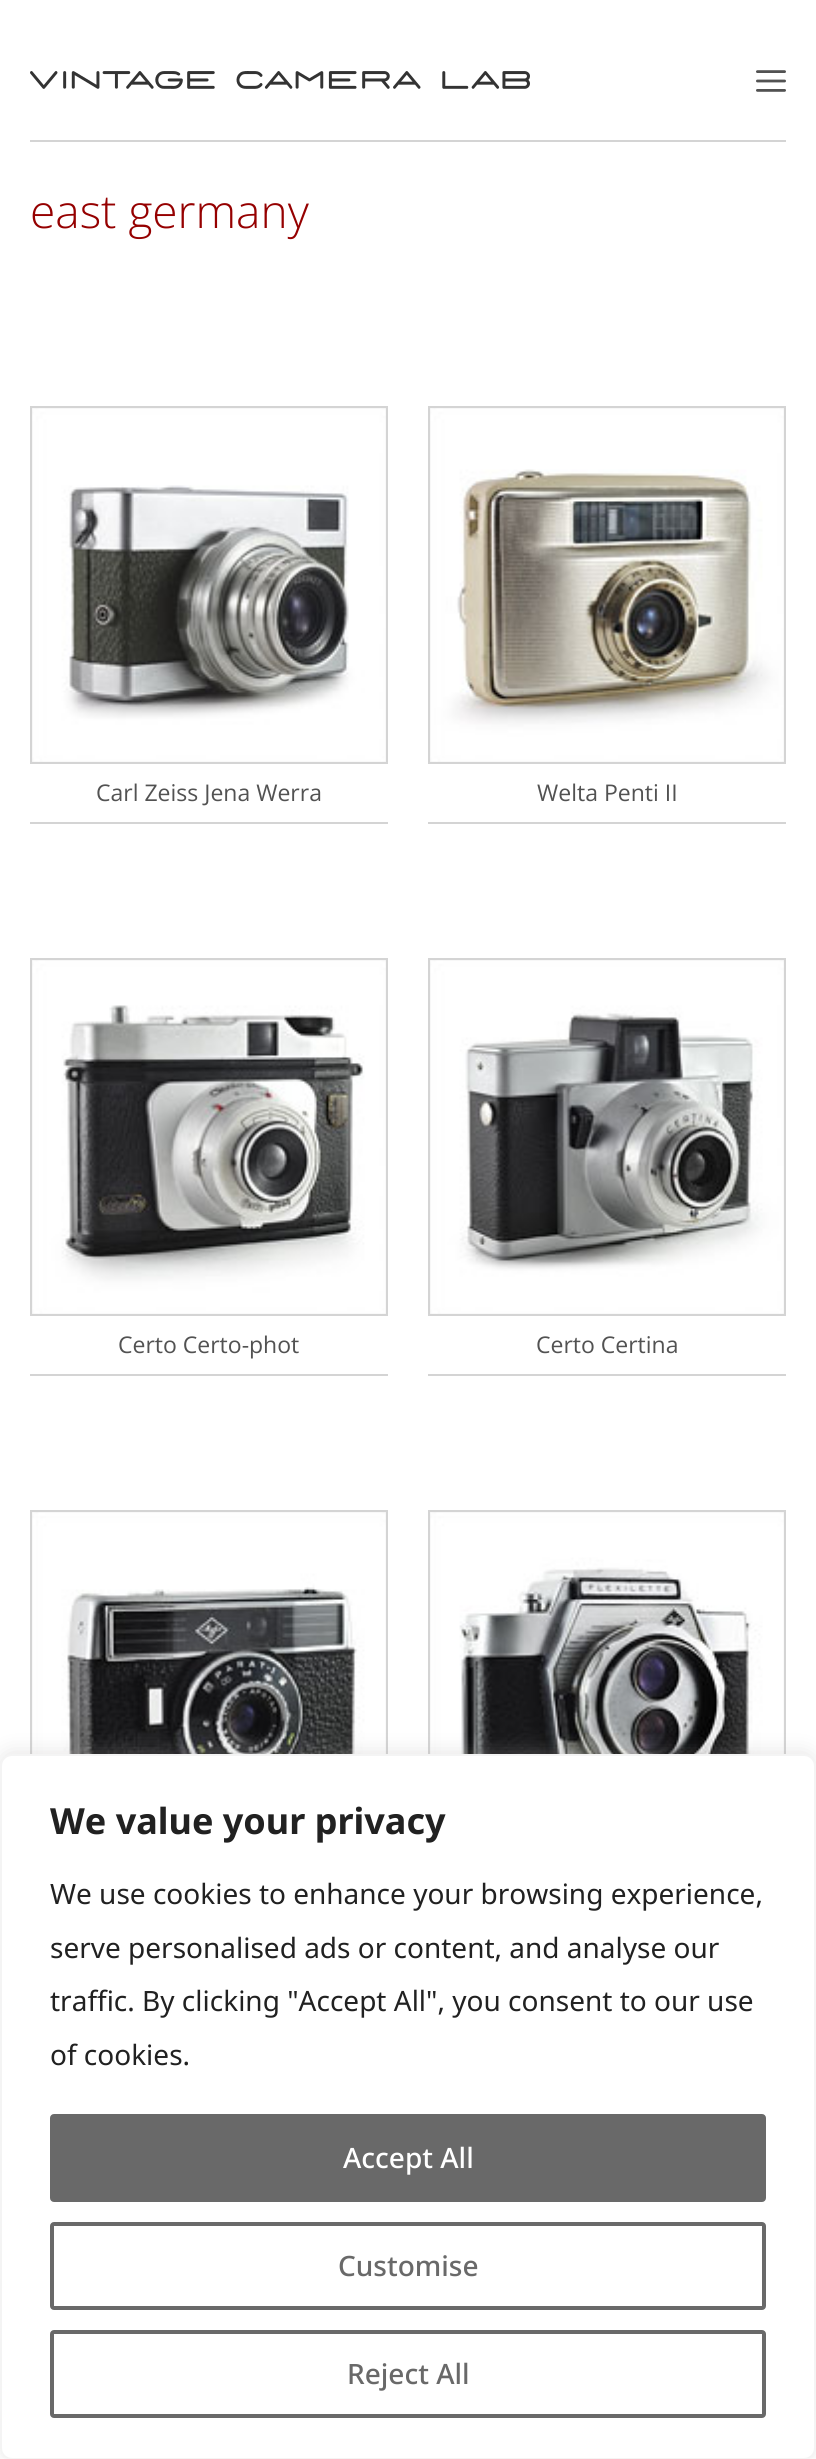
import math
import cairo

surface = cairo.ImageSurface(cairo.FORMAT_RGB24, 816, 2459)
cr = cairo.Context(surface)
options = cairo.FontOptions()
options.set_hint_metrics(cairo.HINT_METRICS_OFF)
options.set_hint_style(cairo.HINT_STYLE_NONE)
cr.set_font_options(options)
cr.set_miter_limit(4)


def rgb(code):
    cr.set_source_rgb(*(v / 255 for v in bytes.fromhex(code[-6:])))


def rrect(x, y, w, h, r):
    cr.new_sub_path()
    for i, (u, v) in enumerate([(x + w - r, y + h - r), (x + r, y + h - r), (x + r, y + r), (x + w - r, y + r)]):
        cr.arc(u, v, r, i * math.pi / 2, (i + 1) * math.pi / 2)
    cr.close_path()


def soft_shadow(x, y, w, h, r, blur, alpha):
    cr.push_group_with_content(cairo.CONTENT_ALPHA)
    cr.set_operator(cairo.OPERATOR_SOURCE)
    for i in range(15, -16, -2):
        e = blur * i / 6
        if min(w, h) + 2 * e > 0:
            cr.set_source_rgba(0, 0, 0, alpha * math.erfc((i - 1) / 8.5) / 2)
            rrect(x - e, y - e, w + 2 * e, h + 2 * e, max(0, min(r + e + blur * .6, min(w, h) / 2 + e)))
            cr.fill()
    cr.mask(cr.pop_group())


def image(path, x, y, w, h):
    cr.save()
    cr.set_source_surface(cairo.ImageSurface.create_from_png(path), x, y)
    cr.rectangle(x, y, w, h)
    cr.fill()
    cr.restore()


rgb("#ffffff")
cr.paint()
rgb("#d4d4d4")
cr.rectangle(30, 140, 756, 2)
cr.fill()
image("img/1.png", 30, 71, 500, 18)
image("img/2.png", 756, 70, 30, 22)
image("img/3.png", 32, 408, 354, 354)
cr.rectangle(31, 407, 356, 356)
cr.stroke()
cr.rectangle(30, 822, 358, 2)
cr.fill()
image("img/4.png", 430, 408, 354, 354)
cr.rectangle(429, 407, 356, 356)
cr.stroke()
cr.rectangle(428, 822, 358, 2)
cr.fill()
image("img/5.png", 32, 960, 354, 354)
cr.rectangle(31, 959, 356, 356)
cr.stroke()
cr.rectangle(30, 1374, 358, 2)
cr.fill()
image("img/6.png", 430, 960, 354, 354)
cr.rectangle(429, 959, 356, 356)
cr.stroke()
cr.rectangle(428, 1374, 358, 2)
cr.fill()
image("img/7.png", 32, 1512, 354, 242)
cr.rectangle(31, 1511, 356, 356)
cr.stroke()
image("img/8.png", 430, 1512, 354, 242)
cr.rectangle(429, 1511, 356, 356)
cr.stroke()
rgb("#acabab")
soft_shadow(0, 1752, 816, 706, 12, 10, 0.3)
rgb("#ffffff")
rrect(1, 1755, 814, 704, 11)
cr.fill_preserve()
rgb("#f4f4f4")
cr.stroke()
rgb("#696969")
rrect(52, 2116, 712, 84, 2)
cr.fill_preserve()
cr.set_line_width(4)
cr.stroke()
rrect(52, 2224, 712, 84, 2)
cr.stroke()
rrect(52, 2332, 712, 84, 2)
cr.stroke()
cr.select_font_face("Open Sans Light")
cr.set_font_size(46)
rgb("#950000")
cr.move_to(30, 228)
cr.show_text("east germany")
cr.select_font_face("Open Sans")
cr.set_font_size(23)
rgb("#525252")
for x, y, s in [
    (96, 801, "Carl Zeiss Jena Werra"),
    (537, 801, "Welta Penti II"),
    (118, 1353, "Certo Certo-phot"),
    (536, 1353, "Certo Certina"),
]:
    cr.move_to(x, y)
    cr.show_text(s)
cr.select_font_face("Noto Sans", cairo.FONT_SLANT_NORMAL, cairo.FONT_WEIGHT_BOLD)
cr.set_font_size(36)
rgb("#212121")
cr.move_to(50, 1834)
cr.show_text("We value your privacy")
cr.select_font_face("Noto Sans")
cr.set_font_size(28)
for x, y, s in [
    (50, 1904, "We use cookies to enhance your browsing experience,"),
    (50, 1958, "serve personalised ads or content, and analyse our"),
    (50, 2011, "traffic. By clicking \"Accept All\", you consent to our use"),
    (50, 2065, "of cookies."),
]:
    cr.move_to(x, y)
    cr.show_text(s)
cr.select_font_face("Noto Sans Medium")
rgb("#ffffff")
cr.move_to(343, 2168)
cr.show_text("Accept All")
rgb("#696969")
cr.move_to(338, 2276)
cr.show_text("Customise")
cr.move_to(347, 2384)
cr.show_text("Reject All")
surface.write_to_png("page.png")
